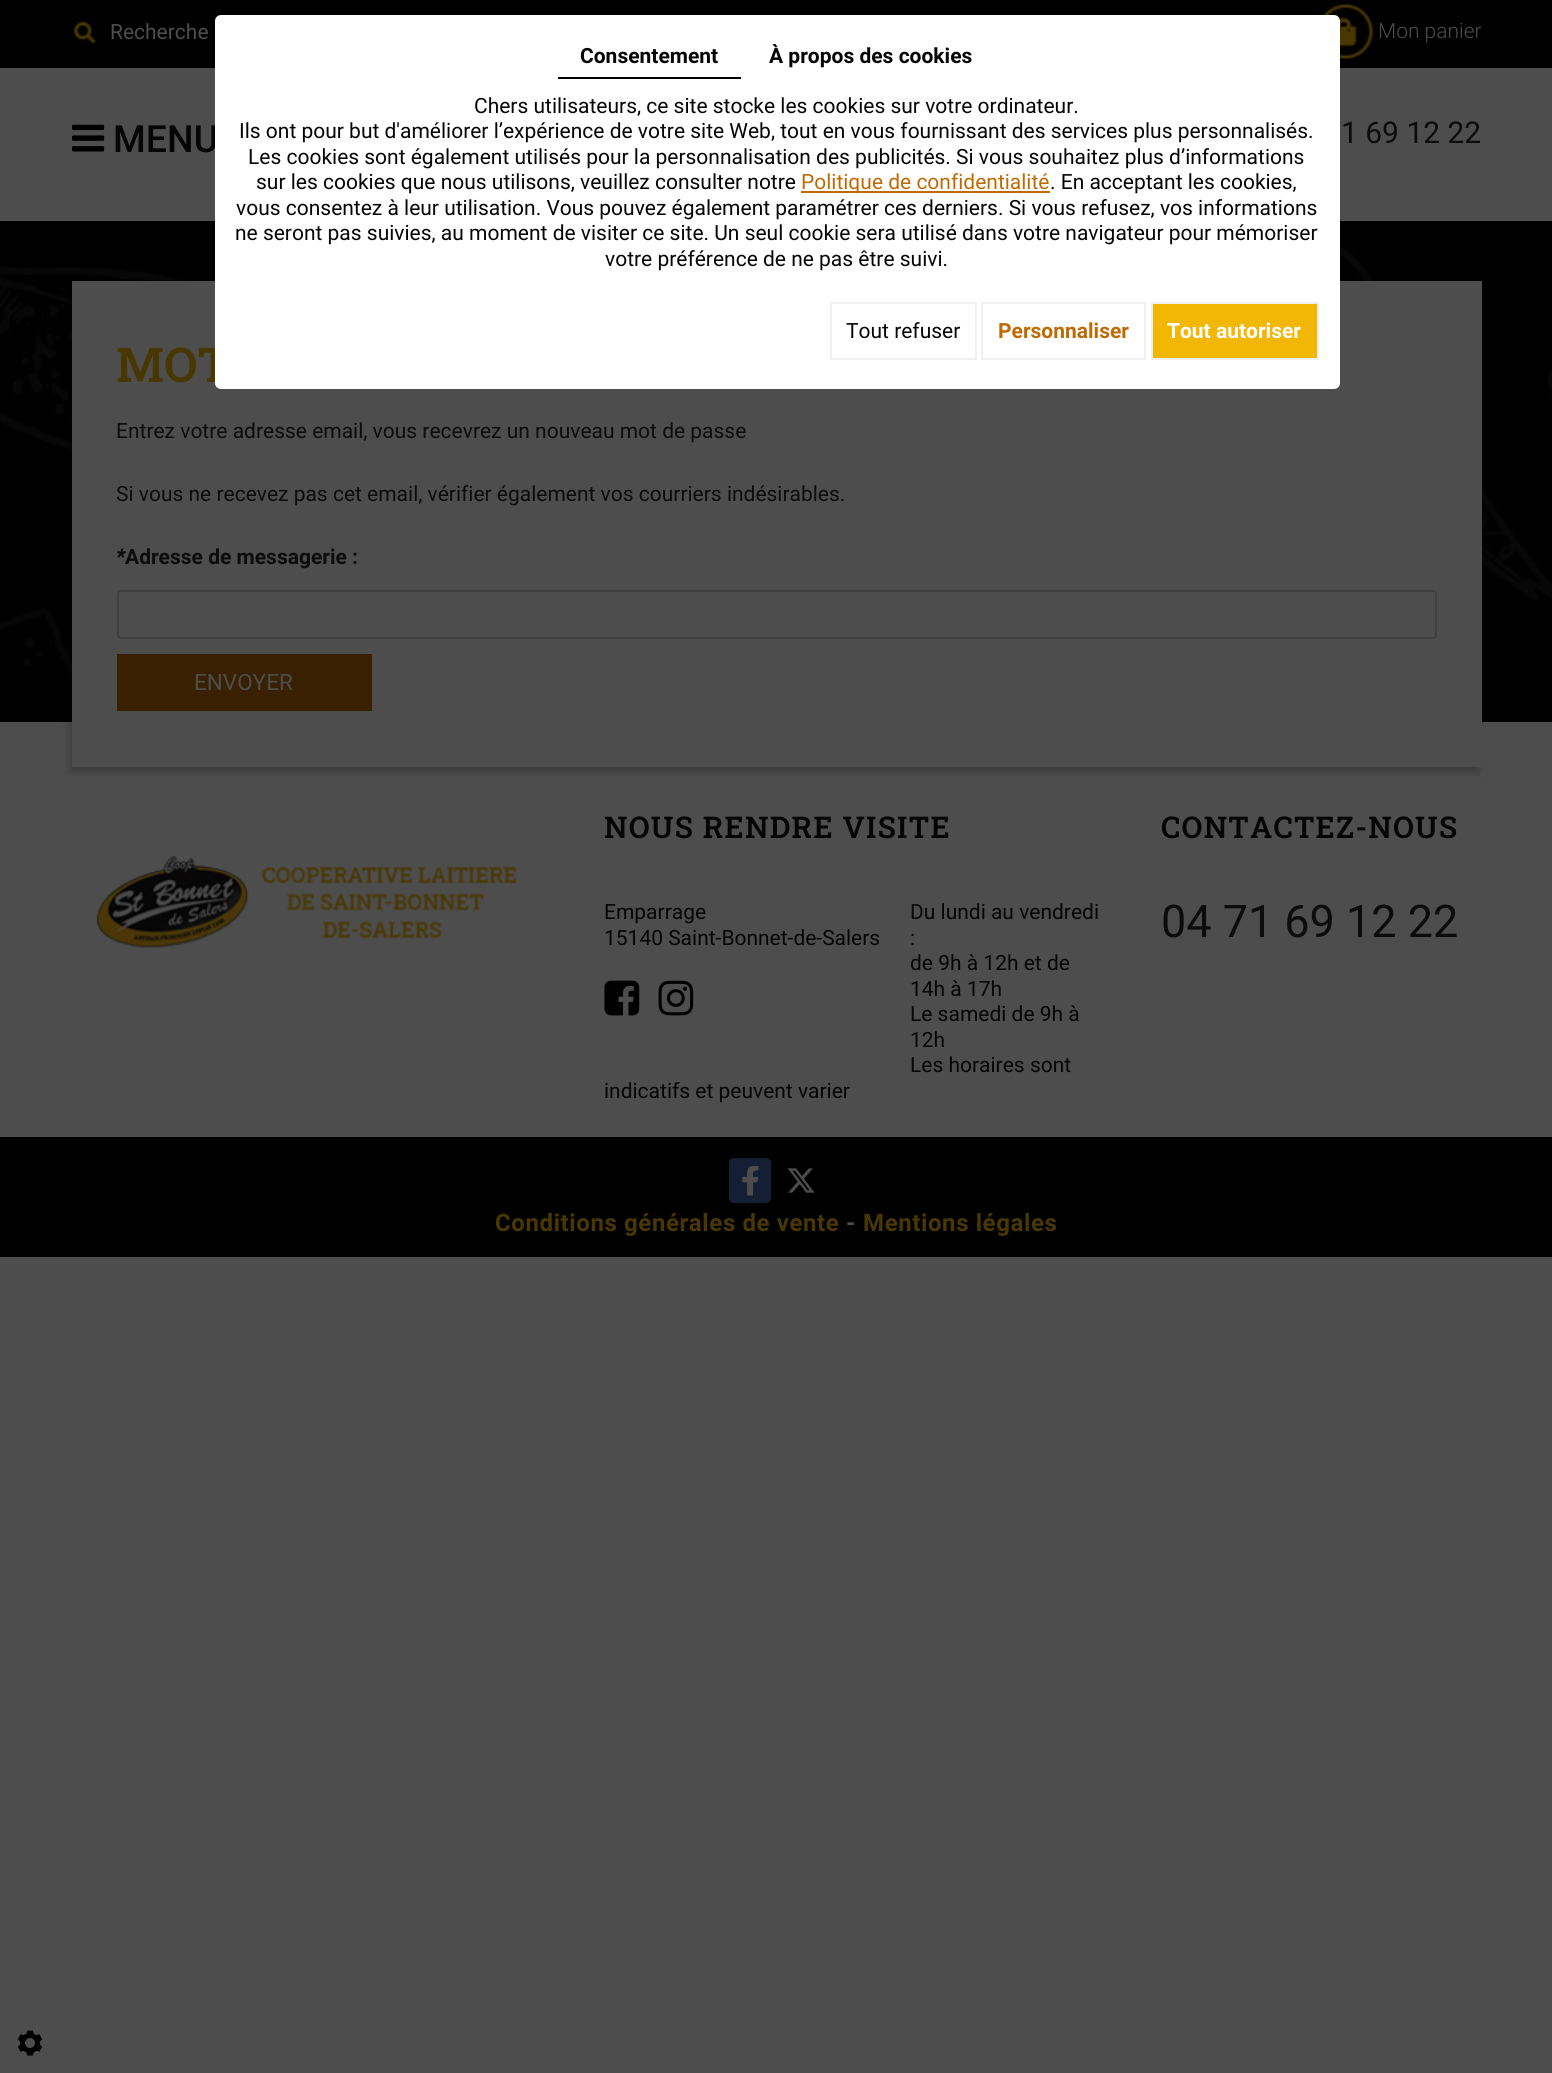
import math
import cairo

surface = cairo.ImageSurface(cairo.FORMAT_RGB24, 1552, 2073)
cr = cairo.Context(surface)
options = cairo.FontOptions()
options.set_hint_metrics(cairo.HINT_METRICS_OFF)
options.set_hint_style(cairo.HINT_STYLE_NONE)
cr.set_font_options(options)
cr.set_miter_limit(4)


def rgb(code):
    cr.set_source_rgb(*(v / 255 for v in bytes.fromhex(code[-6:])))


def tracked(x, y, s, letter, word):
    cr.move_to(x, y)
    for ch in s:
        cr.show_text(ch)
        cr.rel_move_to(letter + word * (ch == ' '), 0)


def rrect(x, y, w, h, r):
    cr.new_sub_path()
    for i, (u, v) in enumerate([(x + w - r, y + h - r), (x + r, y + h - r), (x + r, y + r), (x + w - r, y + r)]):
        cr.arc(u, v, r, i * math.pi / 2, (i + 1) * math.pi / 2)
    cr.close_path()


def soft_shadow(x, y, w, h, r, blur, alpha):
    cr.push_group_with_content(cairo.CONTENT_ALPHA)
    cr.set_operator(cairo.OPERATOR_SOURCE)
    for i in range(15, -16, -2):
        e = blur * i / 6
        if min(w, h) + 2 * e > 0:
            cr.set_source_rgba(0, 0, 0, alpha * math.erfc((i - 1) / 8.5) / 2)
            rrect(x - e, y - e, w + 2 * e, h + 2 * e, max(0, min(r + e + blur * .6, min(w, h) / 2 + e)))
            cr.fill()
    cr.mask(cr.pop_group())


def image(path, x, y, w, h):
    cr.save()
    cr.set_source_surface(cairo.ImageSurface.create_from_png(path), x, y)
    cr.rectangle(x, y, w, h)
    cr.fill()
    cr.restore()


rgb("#4d4d4d")
cr.paint()
rgb("#000000")
cr.rectangle(0, 0, 1552, 68)
cr.fill()
image("img/1.png", 73, 20, 24, 24)
image("img/2.png", 1322, 4, 52, 55)
image("img/3.png", 72, 124, 33, 28)
cr.rectangle(0, 1137, 1552, 120)
cr.fill()
rgb("#141f35")
rrect(729, 1158, 42, 45, 5)
cr.fill()
image("img/4.png", 742, 1166, 17, 30)
image("img/5.png", 787, 1168, 28, 25)
image("img/6.png", 17, 2030, 26, 26)
image("img/7.png", 96, 856, 422, 92)
image("img/8.png", 604, 980, 36, 36)
image("img/9.png", 658, 980, 36, 36)
image("img/10.png", 0, 221, 1552, 501)
rgb("#000000")
soft_shadow(69, 287, 1410, 486, 0, 4, 0.21)
rgb("#4d4d4d")
cr.rectangle(72, 281, 1410, 486)
cr.fill()
rrect(118, 591, 1318, 47, 3)
rgb("#404040")
cr.stroke()
rgb("#392001")
cr.rectangle(117, 654, 255, 57)
cr.fill()
cr.select_font_face("Roboto")
cr.set_font_size(21)
rgb("#4d4d4d")
cr.move_to(110, 39)
cr.show_text("Recherche")
cr.select_font_face("Roboto Light")
cr.move_to(1378, 38)
cr.show_text("Mon panier")
cr.select_font_face("Roboto Medium")
cr.set_font_size(37.5)
rgb("#050505")
cr.move_to(113, 152)
cr.show_text("MENU")
cr.select_font_face("Roboto")
cr.set_font_size(30)
rgb("#0c0c0c")
cr.move_to(1341, 143)
cr.show_text("1 69 12 22")
cr.select_font_face("Roboto", cairo.FONT_SLANT_NORMAL, cairo.FONT_WEIGHT_BOLD)
cr.set_font_size(24)
rgb("#493702")
tracked(495, 1231, "Conditions générales de vente", 0.6, 0)
rgb("#4d4d4d")
tracked(846, 1231, "-", 0.6, 0)
rgb("#493702")
tracked(863, 1231, "Mentions légales", 0.6, 0)
cr.select_font_face("Roboto Slab SemiBold")
cr.set_font_size(30)
rgb("#050505")
tracked(604, 838, "NOUS RENDRE VISITE", 1.25, 0)
cr.select_font_face("Roboto")
cr.set_font_size(21)
for x, y, s in [
    (910, 919, "Du lundi au vendredi"),
    (910, 945, ":"),
    (910, 970, "de 9h à 12h et de"),
    (910, 996, "14h à 17h"),
    (910, 1021, "Le samedi de 9h à"),
    (910, 1047, "12h"),
    (910, 1072, "Les horaires sont"),
    (604, 1098, "indicatifs et peuvent varier"),
    (604, 919, "Emparrage"),
    (604, 945, "15140 Saint-Bonnet-de-Salers"),
]:
    cr.move_to(x, y)
    cr.show_text(s)
cr.select_font_face("Roboto Slab SemiBold")
cr.set_font_size(30)
tracked(1161, 838, "CONTACTEZ-NOUS", 1.25, 0)
cr.select_font_face("Roboto")
cr.set_font_size(45)
rgb("#0c0c0c")
cr.move_to(1161, 937)
cr.show_text("04 71 69 12 22")
cr.select_font_face("Roboto Slab SemiBold")
cr.set_font_size(48)
rgb("#493702")
cr.move_to(116, 382)
cr.show_text("MOT")
rgb("#ffffff")
rrect(215, 15, 1125, 374, 6)
cr.fill()
rgb("#f2b705")
cr.rectangle(1152, 303, 166, 56)
cr.fill_preserve()
rgb("#f0f0f0")
cr.stroke()
cr.select_font_face("Roboto", cairo.FONT_SLANT_NORMAL, cairo.FONT_WEIGHT_BOLD)
cr.set_font_size(21)
rgb("#ffffff")
cr.move_to(1167, 338)
cr.show_text("Tout autoriser")
cr.rectangle(982, 303, 163, 56)
rgb("#f0f0f0")
cr.stroke()
rgb("#bf6b04")
cr.move_to(998, 338)
cr.show_text("Personnaliser")
cr.rectangle(831, 303, 145, 56)
rgb("#f0f0f0")
cr.stroke()
cr.select_font_face("Roboto")
rgb("#050505")
for x, y, s in [
    (846, 338, "Tout refuser"),
    (605, 266, "votre préférence de ne pas être suivi."),
    (235, 240, "ne seront pas suivies, au moment de visiter ce site. Un seul cookie sera utilisé dans votre navigateur pour mémoriser"),
    (236, 215, "vous consentez à leur utilisation. Vous pouvez également paramétrer ces derniers. Si vous refusez, vos informations"),
    (1050, 189, ". En acceptant les cookies,"),
]:
    cr.move_to(x, y)
    cr.show_text(s)
rgb("#bf6b04")
cr.rectangle(801, 191, 249, 2)
cr.fill()
cr.move_to(801, 189)
cr.show_text("Politique de confidentialité")
rgb("#050505")
for x, y, s in [
    (256, 189, "sur les cookies que nous utilisons, veuillez consulter notre"),
    (248, 164, "Les cookies sont également utilisés pour la personnalisation des publicités. Si vous souhaitez plus d’informations"),
    (239, 138, "Ils ont pour but d'améliorer l’expérience de votre site Web, tout en vous fournissant des services plus personnalisés."),
    (474, 113, "Chers utilisateurs, ce site stocke les cookies sur votre ordinateur."),
]:
    cr.move_to(x, y)
    cr.show_text(s)
cr.select_font_face("Roboto", cairo.FONT_SLANT_NORMAL, cairo.FONT_WEIGHT_BOLD)
cr.move_to(769, 63)
cr.show_text("À propos des cookies")
cr.move_to(580, 63)
cr.show_text("Consentement")
rgb("#000000")
cr.rectangle(558, 77, 183, 2)
cr.fill()
cr.select_font_face("Roboto")
rgb("#0c0c0c")
cr.move_to(116, 438)
cr.show_text("Entrez votre adresse email, vous recevrez un nouveau mot de passe")
cr.move_to(116, 501)
cr.show_text("Si vous ne recevez pas cet email, vérifier également vos courriers indésirables.")
cr.select_font_face("Roboto", cairo.FONT_SLANT_ITALIC, cairo.FONT_WEIGHT_BOLD)
cr.move_to(116, 564)
cr.show_text("*")
cr.select_font_face("Roboto", cairo.FONT_SLANT_NORMAL, cairo.FONT_WEIGHT_BOLD)
cr.move_to(125, 564)
cr.show_text("Adresse de messagerie :")
cr.select_font_face("Roboto")
cr.set_font_size(22.5)
rgb("#4d4d4d")
cr.move_to(194, 690)
cr.show_text("ENVOYER")
surface.write_to_png("page.png")
